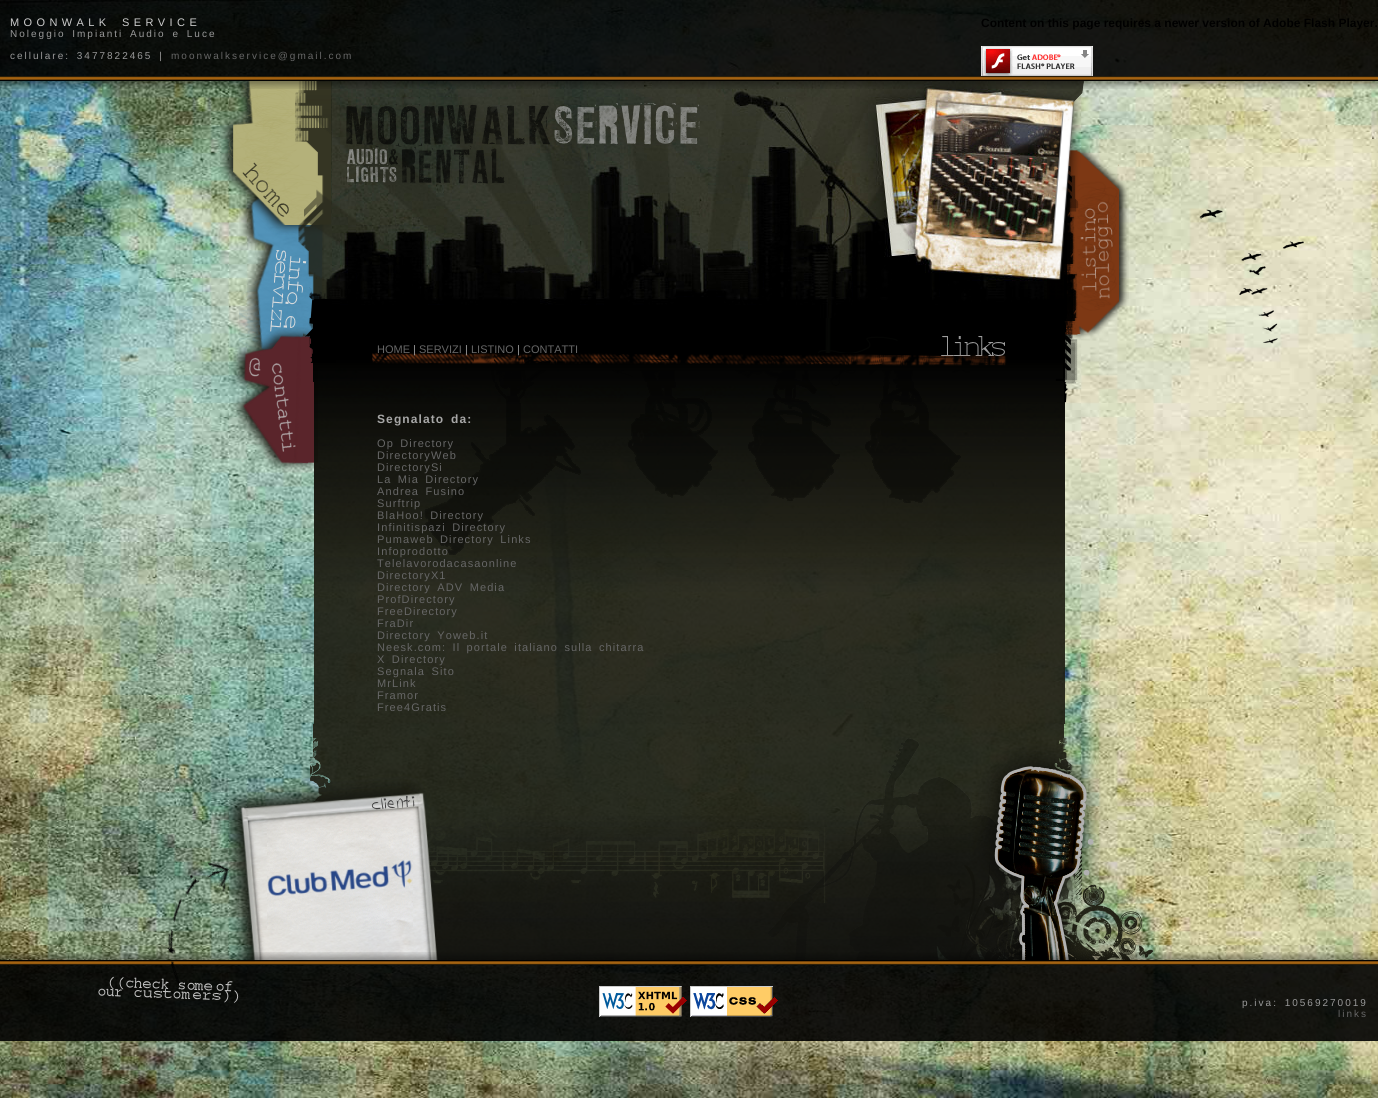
import math
import cairo

surface = cairo.ImageSurface(cairo.FORMAT_RGB24, 1378, 1098)
cr = cairo.Context(surface)
options = cairo.FontOptions()
options.set_hint_metrics(cairo.HINT_METRICS_OFF)
options.set_hint_style(cairo.HINT_STYLE_NONE)
cr.set_font_options(options)
cr.set_miter_limit(4)


def rgb(code):
    cr.set_source_rgb(*(v / 255 for v in bytes.fromhex(code[-6:])))


def tracked(x, y, s, letter, word):
    cr.move_to(x, y)
    for ch in s:
        cr.show_text(ch)
        cr.rel_move_to(letter + word * (ch == ' '), 0)


def image(path, x, y, w, h):
    cr.save()
    cr.set_source_surface(cairo.ImageSurface.create_from_png(path), x, y)
    cr.rectangle(x, y, w, h)
    cr.fill()
    cr.restore()


rgb("#ffffff")
cr.paint()
image("img/1.png", 0, 0, 1378, 1098)
image("img/5.png", 239, 189, 85, 167)
image("img/3.png", 218, 72, 113, 163)
cr.set_source_rgba(0, 0, 0, 0.9)
cr.rectangle(0, 0, 1378, 76)
cr.fill()
image("img/2.png", 981, 46, 112, 33)
image("img/6.png", 295, 81, 37, 237)
image("img/7.png", 332, 81, 715, 237)
image("img/10.png", 1047, 146, 82, 194)
image("img/8.png", 1047, 81, 37, 237)
image("img/4.png", 0, 76, 1378, 13)
image("img/9.png", 346, 103, 354, 81)
image("img/11.png", 1199, 209, 105, 135)
image("img/12.png", 231, 327, 87, 145)
image("img/13.png", 303, 318, 775, 64)
image("img/14.png", 314, 382, 763, 218)
cr.set_source_rgba(0.122, 0.122, 0.078, 0.92)
cr.rectangle(314, 600, 751, 124)
cr.fill()
image("img/15.png", 224, 724, 930, 238)
image("img/16.png", 267, 827, 146, 103)
image("img/17.png", 0, 952, 1378, 89)
image("img/18.png", 167, 862, 62, 122)
image("img/19.png", 98, 976, 141, 27)
image("img/20.png", 599, 986, 88, 31)
image("img/21.png", 690, 986, 88, 31)
cr.select_font_face("Liberation Sans")
cr.set_font_size(11)
rgb("#cccccc")
tracked(10, 26, "MOONWALK SERVICE", 4.4, 4)
cr.set_font_size(10)
rgb("#999999")
tracked(10, 37, "Noleggio Impianti Audio e Luce", 2, 2)
tracked(10, 59, "cellulare: 3477822465 |", 2, 2)
rgb("#666666")
tracked(171, 59, "moonwalkservice@gmail.com", 2, 0)
cr.select_font_face("Liberation Sans", cairo.FONT_SLANT_NORMAL, cairo.FONT_WEIGHT_BOLD)
cr.set_font_size(12)
rgb("#000000")
cr.move_to(981, 27)
cr.show_text("Content on this page requires a newer version of Adobe Flash Player.")
cr.select_font_face("Liberation Sans")
cr.set_font_size(11)
rgb("#666666")
cr.move_to(377, 353)
cr.show_text("HOME")
rgb("#999999")
cr.move_to(413, 353)
cr.show_text("|")
rgb("#666666")
cr.move_to(419, 353)
cr.show_text("SERVIZI")
rgb("#999999")
cr.move_to(465, 353)
cr.show_text("|")
rgb("#666666")
cr.move_to(471, 353)
cr.show_text("LISTINO")
rgb("#999999")
cr.move_to(517, 353)
cr.show_text("|")
rgb("#666666")
cr.move_to(523, 353)
cr.show_text("CONTATTI")
cr.select_font_face("Liberation Sans", cairo.FONT_SLANT_NORMAL, cairo.FONT_WEIGHT_BOLD)
cr.set_font_size(12)
rgb("#a7a7a7")
tracked(377, 423, "Segnalato da:", 1.1, 2.25)
cr.select_font_face("Liberation Sans")
cr.set_font_size(11)
rgb("#666666")
tracked(377, 447, "Op Directory", 1.1, 2.25)
tracked(377, 459, "DirectoryWeb", 1.1, 0)
tracked(377, 471, "DirectorySi", 1.1, 0)
tracked(377, 483, "La Mia Directory", 1.1, 2.25)
tracked(377, 495, "Andrea Fusino", 1.1, 2.25)
tracked(377, 507, "Surftrip", 1.1, 0)
for x, y, s in [
    (377, 519, "BlaHoo! Directory"),
    (377, 531, "Infinitispazi Directory"),
    (377, 543, "Pumaweb Directory Links"),
]:
    tracked(x, y, s, 1.1, 2.25)
for x, y, s in [
    (377, 555, "Infoprodotto"),
    (377, 567, "Telelavorodacasaonline"),
    (377, 579, "DirectoryX1"),
]:
    tracked(x, y, s, 1.1, 0)
tracked(377, 591, "Directory ADV Media", 1.1, 2.25)
for x, y, s in [
    (377, 603, "ProfDirectory"),
    (377, 615, "FreeDirectory"),
    (377, 627, "FraDir"),
]:
    tracked(x, y, s, 1.1, 0)
for x, y, s in [
    (377, 639, "Directory Yoweb.it"),
    (377, 651, "Neesk.com: Il portale italiano sulla chitarra"),
    (377, 663, "X Directory"),
    (377, 675, "Segnala Sito"),
]:
    tracked(x, y, s, 1.1, 2.25)
for x, y, s in [
    (377, 687, "MrLink"),
    (377, 699, "Framor"),
    (377, 711, "Free4Gratis"),
]:
    tracked(x, y, s, 1.1, 0)
cr.set_font_size(10)
rgb("#999999")
tracked(1242, 1006, "p.iva: 10569270019", 2, 2)
rgb("#666666")
tracked(1338, 1017, "links", 2, 0)
surface.write_to_png("page.png")
